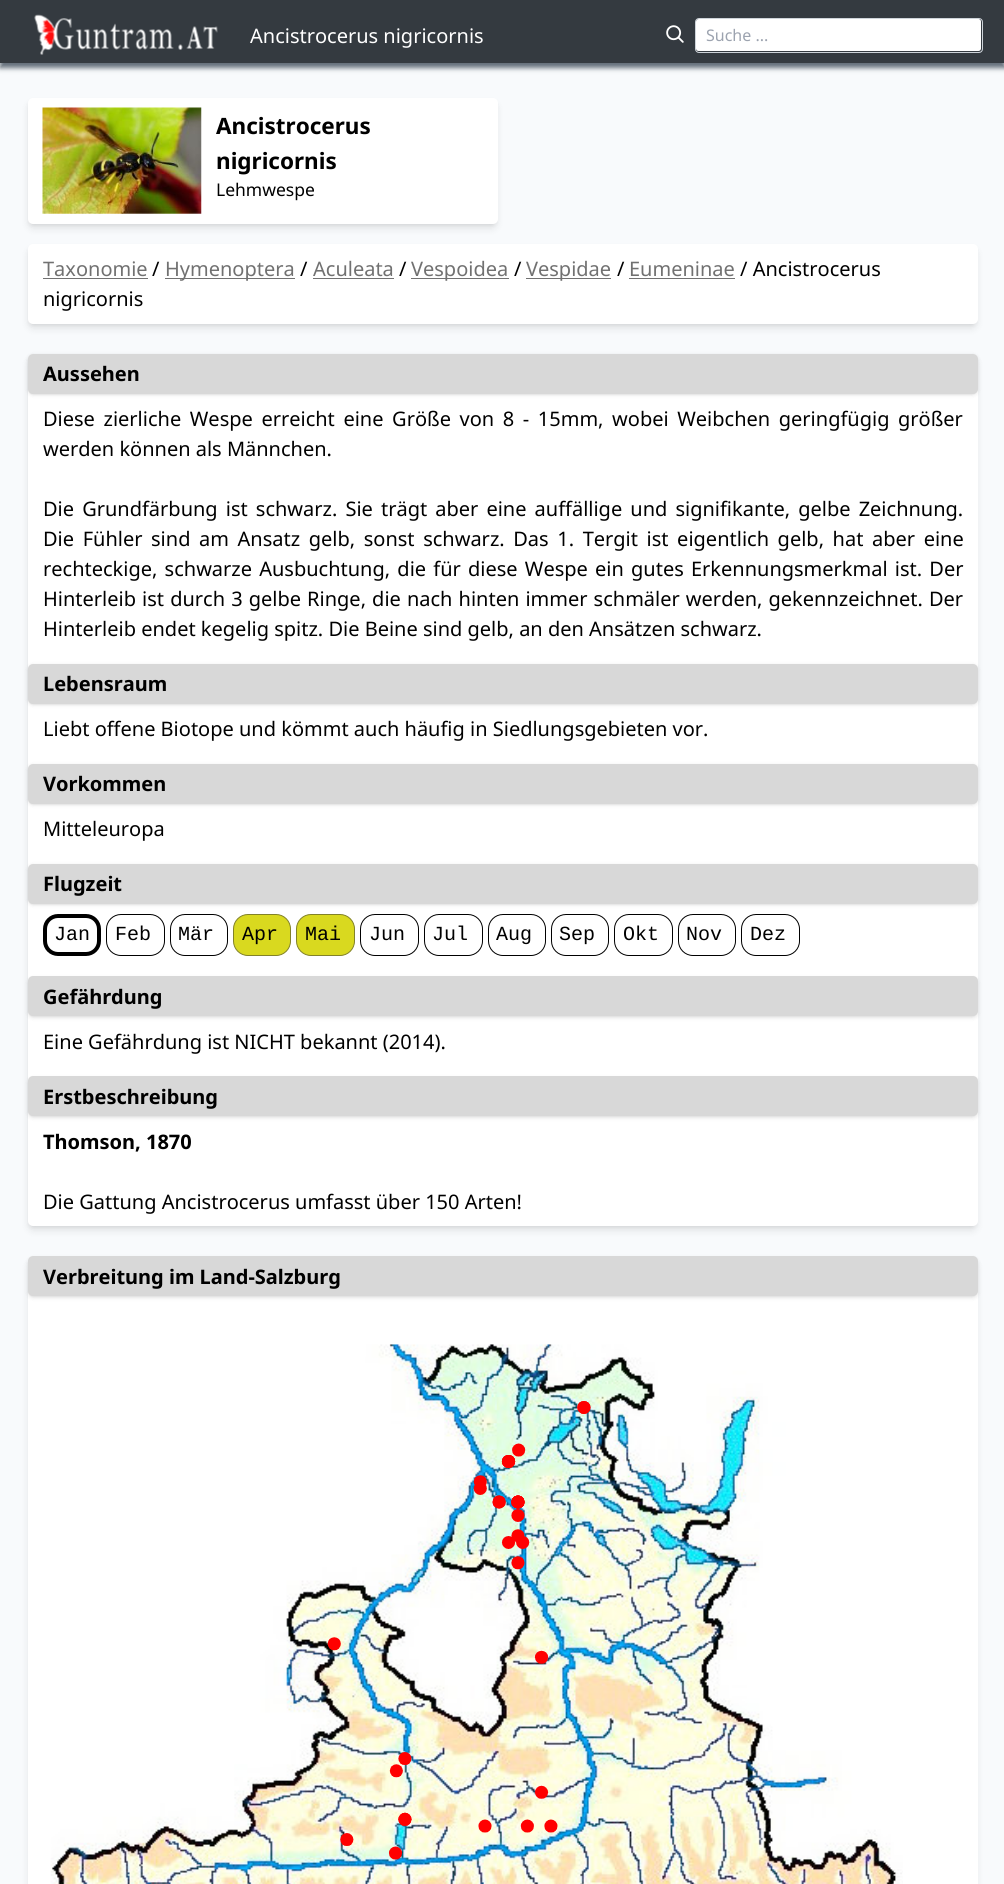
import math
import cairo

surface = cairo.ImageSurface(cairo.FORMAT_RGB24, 1004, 1884)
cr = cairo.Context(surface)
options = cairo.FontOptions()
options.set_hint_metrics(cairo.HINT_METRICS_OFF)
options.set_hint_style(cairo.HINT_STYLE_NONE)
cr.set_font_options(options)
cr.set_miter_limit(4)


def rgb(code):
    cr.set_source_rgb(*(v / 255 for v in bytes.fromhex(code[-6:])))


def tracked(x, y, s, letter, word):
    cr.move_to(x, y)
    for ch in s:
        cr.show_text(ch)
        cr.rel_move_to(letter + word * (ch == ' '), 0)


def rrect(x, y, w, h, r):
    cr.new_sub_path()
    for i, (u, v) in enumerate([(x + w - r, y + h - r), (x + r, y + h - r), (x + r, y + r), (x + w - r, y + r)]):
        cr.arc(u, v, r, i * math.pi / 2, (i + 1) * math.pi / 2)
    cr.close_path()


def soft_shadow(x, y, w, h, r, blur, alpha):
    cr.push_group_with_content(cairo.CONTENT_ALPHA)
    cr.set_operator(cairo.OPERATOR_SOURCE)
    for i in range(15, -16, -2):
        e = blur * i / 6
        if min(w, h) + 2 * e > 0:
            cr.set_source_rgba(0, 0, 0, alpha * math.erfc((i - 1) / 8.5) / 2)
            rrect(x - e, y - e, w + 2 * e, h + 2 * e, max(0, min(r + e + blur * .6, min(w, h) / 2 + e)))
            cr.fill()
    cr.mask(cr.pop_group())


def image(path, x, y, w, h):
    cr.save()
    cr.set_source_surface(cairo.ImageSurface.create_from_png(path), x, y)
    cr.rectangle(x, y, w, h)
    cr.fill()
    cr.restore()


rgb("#f8fafc")
cr.paint()
rgb("#626d78")
soft_shadow(0, 5, 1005, 63, 0, 2.5, 1)
rgb("#343a40")
cr.rectangle(0, 0, 1004, 63)
cr.fill()
image("img/1.png", 34, 14, 184, 41)
image("img/2.png", 666, 25, 18, 18)
rgb("#ffffff")
rrect(696, 19, 285, 32, 2.5)
cr.fill()
rrect(695.5, 18.5, 287, 34, 3.5)
rgb("#ced4da")
cr.set_line_width(1)
cr.stroke()
rgb("#000000")
soft_shadow(30, 103, 465, 121, 2.5, 2.5, 0.1)
soft_shadow(29, 104, 467, 124, 4, 4, 0.1)
rgb("#ffffff")
rrect(28, 98, 470, 126, 5)
cr.fill()
image("img/3.png", 42, 107, 160, 107)
rgb("#000000")
soft_shadow(30, 249, 945, 75, 2.5, 2.5, 0.1)
soft_shadow(29, 250, 947, 78, 4, 4, 0.1)
rgb("#ffffff")
rrect(28, 244, 950, 80, 5)
cr.fill()
for x, y, w, h, color in [
    (43, 278, 105, 1, "#717171"),
    (165, 278, 130, 1, "#717171"),
    (313, 278, 81, 1, "#717171"),
    (411, 278, 98, 1, "#717171"),
    (526, 278, 85, 1, "#717171"),
    (629, 278, 106, 1, "#717171"),
]:
    rgb(color)
    cr.rectangle(x, y, w, h)
    cr.fill()
rgb("#000000")
soft_shadow(30, 359, 945, 867, 2.5, 2.5, 0.1)
soft_shadow(29, 360, 947, 870, 4, 4, 0.1)
rgb("#ffffff")
rrect(28, 354, 950, 872, 5)
cr.fill()
rgb("#000000")
soft_shadow(29, 356, 947, 38, 4, 1, 0.1)
soft_shadow(28, 355, 950, 40, 5, 2, 0.1)
rgb("#d8d8d8")
rrect(28, 354, 950, 40, 5)
cr.fill()
rgb("#000000")
soft_shadow(29, 666, 947, 38, 4, 1, 0.1)
soft_shadow(28, 665, 950, 40, 5, 2, 0.1)
rgb("#d8d8d8")
rrect(28, 664, 950, 40, 5)
cr.fill()
rgb("#000000")
soft_shadow(29, 766, 947, 38, 4, 1, 0.1)
soft_shadow(28, 765, 950, 40, 5, 2, 0.1)
rgb("#d8d8d8")
rrect(28, 764, 950, 40, 5)
cr.fill()
rgb("#000000")
soft_shadow(29, 866, 947, 38, 4, 1, 0.1)
soft_shadow(28, 865, 950, 40, 5, 2, 0.1)
rgb("#d8d8d8")
rrect(28, 864, 950, 40, 5)
cr.fill()
rrect(45, 916, 54, 38, 13)
rgb("#000000")
cr.set_line_width(4)
cr.stroke()
rrect(106.5, 914.5, 58, 41, 14.5)
cr.set_line_width(1)
cr.stroke()
rrect(170.5, 914.5, 57, 41, 14.5)
cr.stroke()
rgb("#d9d91f")
rrect(233.5, 914.5, 57, 41, 14.5)
cr.fill_preserve()
rgb("#828228")
cr.stroke()
rgb("#d9d91f")
rrect(296.5, 914.5, 58, 41, 14.5)
cr.fill_preserve()
rgb("#828228")
cr.stroke()
rrect(360.5, 914.5, 58, 41, 14.5)
rgb("#000000")
cr.stroke()
rrect(424.5, 914.5, 58, 41, 14.5)
cr.stroke()
rrect(488.5, 914.5, 57, 41, 14.5)
cr.stroke()
rrect(551.5, 914.5, 57, 41, 14.5)
cr.stroke()
rrect(614.5, 914.5, 58, 41, 14.5)
cr.stroke()
rrect(678.5, 914.5, 57, 41, 14.5)
cr.stroke()
rrect(741.5, 914.5, 58, 41, 14.5)
cr.stroke()
rgb("#000000")
soft_shadow(29, 979, 947, 37, 4, 1, 0.1)
soft_shadow(28, 978, 950, 40, 5, 2, 0.1)
rgb("#d8d8d8")
rrect(28, 976, 950, 40, 5)
cr.fill()
rgb("#000000")
soft_shadow(29, 1079, 947, 37, 4, 1, 0.1)
soft_shadow(28, 1078, 950, 40, 5, 2, 0.1)
rgb("#d8d8d8")
rrect(28, 1076, 950, 40, 5)
cr.fill()
rgb("#000000")
soft_shadow(29, 1263, 947, 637, 4, 4, 0.1)
rgb("#ffffff")
rrect(28, 1256, 950, 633, 5)
cr.fill()
rgb("#000000")
soft_shadow(29, 1259, 947, 37, 4, 1, 0.1)
soft_shadow(28, 1258, 950, 40, 5, 2, 0.1)
rgb("#d8d8d8")
rrect(28, 1256, 950, 40, 5)
cr.fill()
image("img/4.png", 50, 1344, 853, 540)
cr.select_font_face("Noto Sans")
cr.set_font_size(20)
rgb("#ffffff")
cr.move_to(250, 43)
cr.show_text("Ancistrocerus nigricornis")
cr.set_font_size(16)
rgb("#9ca3af")
cr.move_to(706, 41)
cr.show_text("Suche ...")
cr.select_font_face("Noto Sans", cairo.FONT_SLANT_NORMAL, cairo.FONT_WEIGHT_BOLD)
cr.set_font_size(22.5)
rgb("#000000")
cr.move_to(216, 134)
cr.show_text("Ancistrocerus")
cr.move_to(216, 169)
cr.show_text("nigricornis")
cr.select_font_face("Noto Sans")
cr.set_font_size(17.5)
cr.move_to(216, 196)
cr.show_text("Lehmwespe")
cr.set_font_size(20)
rgb("#717171")
cr.move_to(43, 276)
cr.show_text("Taxonomie")
rgb("#000000")
cr.move_to(152, 276)
cr.show_text("/")
rgb("#717171")
cr.move_to(165, 276)
cr.show_text("Hymenoptera")
rgb("#000000")
cr.move_to(300, 276)
cr.show_text("/")
rgb("#717171")
cr.move_to(313, 276)
cr.show_text("Aculeata")
rgb("#000000")
cr.move_to(399, 276)
cr.show_text("/")
rgb("#717171")
cr.move_to(411, 276)
cr.show_text("Vespoidea")
rgb("#000000")
cr.move_to(514, 276)
cr.show_text("/")
rgb("#717171")
cr.move_to(526, 276)
cr.show_text("Vespidae")
rgb("#000000")
cr.move_to(617, 276)
cr.show_text("/")
rgb("#717171")
cr.move_to(629, 276)
cr.show_text("Eumeninae")
rgb("#000000")
cr.move_to(740, 276)
cr.show_text("/ Ancistrocerus")
cr.move_to(43, 306)
cr.show_text("nigricornis")
cr.select_font_face("Noto Sans", cairo.FONT_SLANT_NORMAL, cairo.FONT_WEIGHT_BOLD)
cr.move_to(43, 381)
cr.show_text("Aussehen")
cr.select_font_face("Noto Sans")
tracked(43, 426, "Diese zierliche Wespe erreicht eine Größe von 8 - 15mm, wobei Weibchen geringfügig größer", 0, 3.4)
cr.move_to(43, 456)
cr.show_text("werden können als Männchen.")
tracked(43, 516, "Die Grundfärbung ist schwarz. Sie trägt aber eine auffällige und signifikante, gelbe Zeichnung.", 0, 2.9)
tracked(43, 546, "Die Fühler sind am Ansatz gelb, sonst schwarz. Das 1. Tergit ist eigentlich gelb, hat aber eine", 0, 3.4)
tracked(43, 576, "rechteckige, schwarze Ausbuchtung, die für diese Wespe ein gutes Erkennungsmerkmal ist. Der", 0, 2)
tracked(43, 606, "Hinterleib ist durch 3 gelbe Ringe, die nach hinten immer schmäler werden, gekennzeichnet. Der", 0, 0.9)
cr.move_to(43, 636)
cr.show_text("Hinterleib endet kegelig spitz. Die Beine sind gelb, an den Ansätzen schwarz.")
cr.select_font_face("Noto Sans", cairo.FONT_SLANT_NORMAL, cairo.FONT_WEIGHT_BOLD)
cr.move_to(43, 691)
cr.show_text("Lebensraum")
cr.select_font_face("Noto Sans")
cr.move_to(43, 736)
cr.show_text("Liebt offene Biotope und kömmt auch häufig in Siedlungsgebieten vor.")
cr.select_font_face("Noto Sans", cairo.FONT_SLANT_NORMAL, cairo.FONT_WEIGHT_BOLD)
cr.move_to(43, 791)
cr.show_text("Vorkommen")
cr.select_font_face("Noto Sans")
cr.move_to(43, 836)
cr.show_text("Mitteleuropa")
cr.select_font_face("Noto Sans", cairo.FONT_SLANT_NORMAL, cairo.FONT_WEIGHT_BOLD)
cr.move_to(43, 891)
cr.show_text("Flugzeit")
cr.select_font_face("Liberation Mono")
for x, y, s in [
    (54, 940, "Jan"),
    (115, 940, "Feb"),
    (178, 940, "Mär"),
    (242, 940, "Apr"),
    (305, 940, "Mai"),
    (369, 940, "Jun"),
    (432, 940, "Jul"),
    (496, 940, "Aug"),
    (559, 940, "Sep"),
    (623, 940, "Okt"),
    (686, 940, "Nov"),
    (750, 940, "Dez"),
]:
    cr.move_to(x, y)
    cr.show_text(s)
cr.select_font_face("Noto Sans", cairo.FONT_SLANT_NORMAL, cairo.FONT_WEIGHT_BOLD)
cr.move_to(43, 1004)
cr.show_text("Gefährdung")
cr.select_font_face("Noto Sans")
cr.move_to(43, 1049)
cr.show_text("Eine Gefährdung ist NICHT bekannt (2014).")
cr.select_font_face("Noto Sans", cairo.FONT_SLANT_NORMAL, cairo.FONT_WEIGHT_BOLD)
cr.move_to(43, 1104)
cr.show_text("Erstbeschreibung")
cr.move_to(43, 1149)
cr.show_text("Thomson, 1870")
cr.select_font_face("Noto Sans")
cr.move_to(43, 1209)
cr.show_text("Die Gattung Ancistrocerus umfasst über 150 Arten!")
cr.select_font_face("Noto Sans", cairo.FONT_SLANT_NORMAL, cairo.FONT_WEIGHT_BOLD)
cr.move_to(43, 1284)
cr.show_text("Verbreitung im Land-Salzburg")
surface.write_to_png("page.png")
